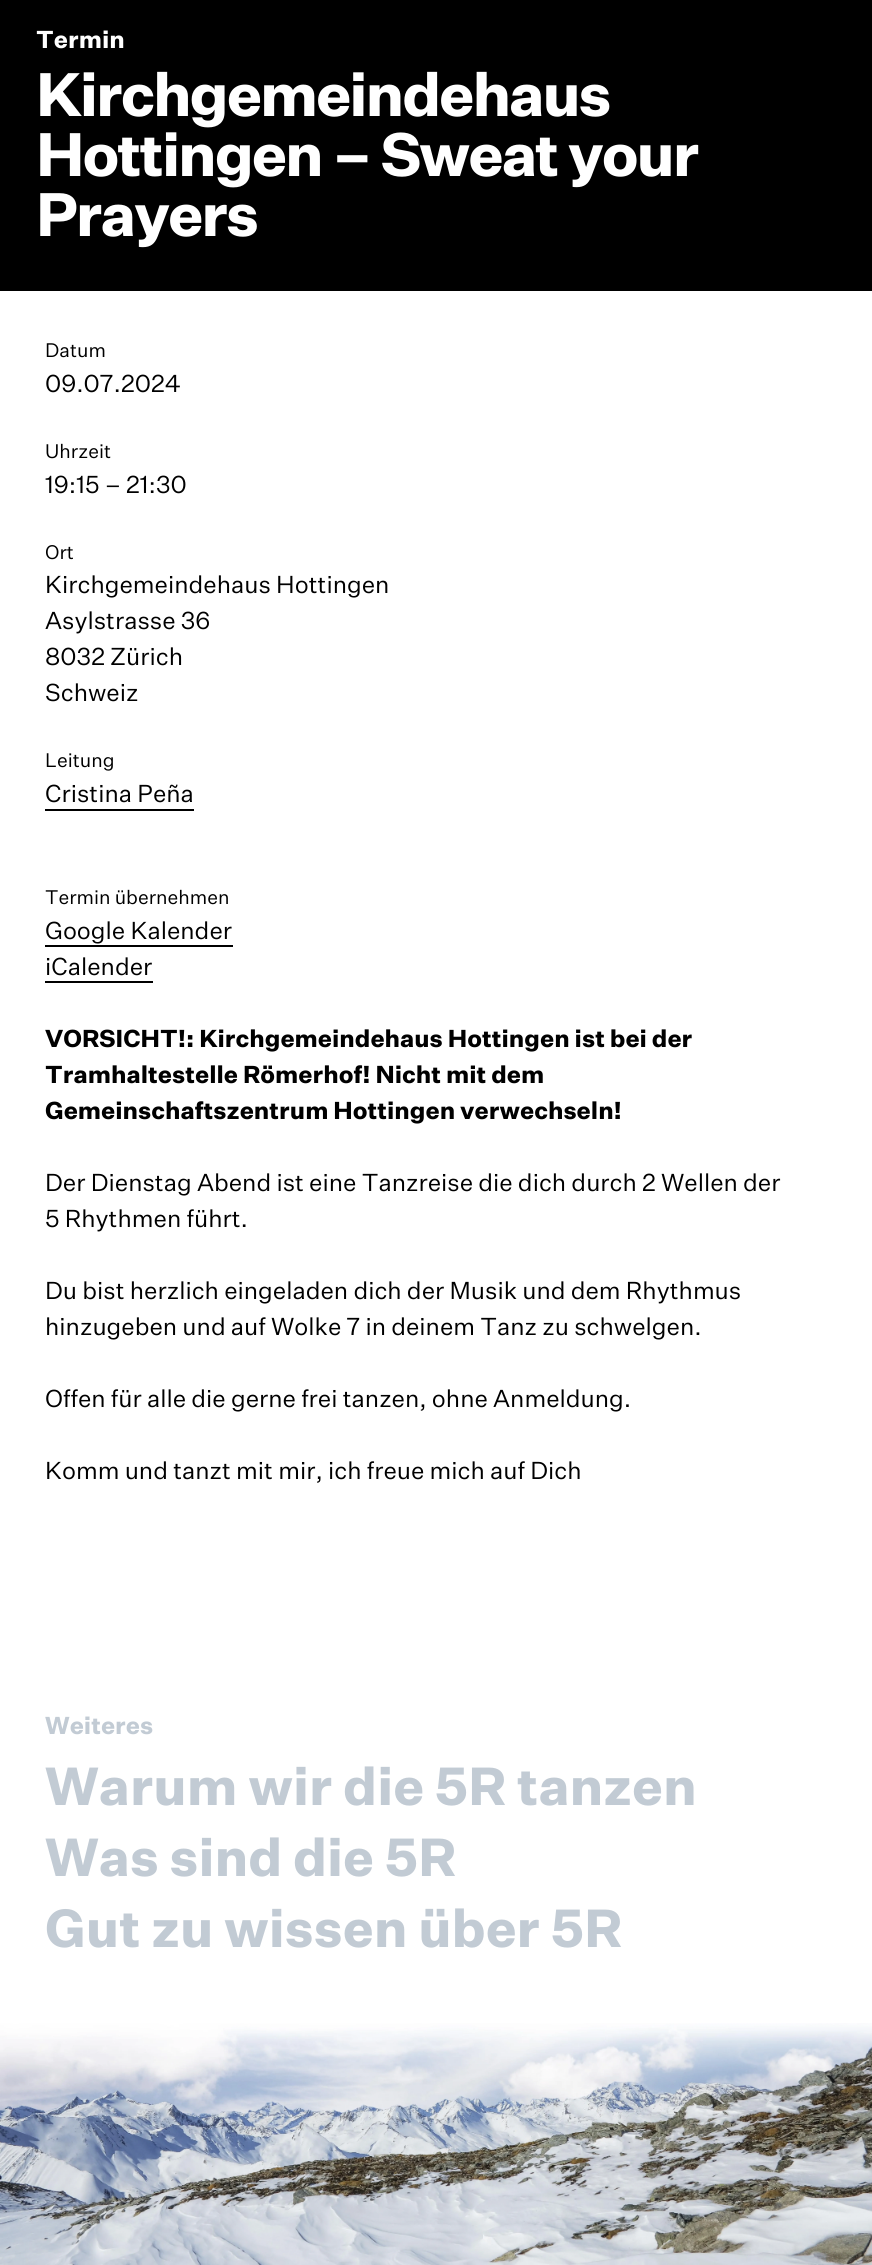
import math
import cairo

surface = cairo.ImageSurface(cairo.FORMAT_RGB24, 872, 2265)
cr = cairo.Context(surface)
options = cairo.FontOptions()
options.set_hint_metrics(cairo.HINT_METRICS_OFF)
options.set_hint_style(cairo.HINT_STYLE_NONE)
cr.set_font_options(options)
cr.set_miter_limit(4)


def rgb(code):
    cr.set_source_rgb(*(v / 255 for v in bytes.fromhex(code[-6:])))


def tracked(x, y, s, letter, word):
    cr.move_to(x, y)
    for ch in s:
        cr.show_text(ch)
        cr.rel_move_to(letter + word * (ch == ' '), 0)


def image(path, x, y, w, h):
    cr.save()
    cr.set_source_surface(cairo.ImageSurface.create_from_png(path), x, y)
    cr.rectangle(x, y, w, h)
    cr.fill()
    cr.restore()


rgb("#ffffff")
cr.paint()
for x, y, w, h, color in [
    (0, 0, 872, 291, "#000000"),
    (45, 809, 149, 2, "#000000"),
    (45, 945, 188, 2, "#000000"),
    (45, 981, 108, 2, "#000000"),
]:
    rgb(color)
    cr.rectangle(x, y, w, h)
    cr.fill()
image("img/1.png", 0, 2023, 872, 242)
cr.select_font_face("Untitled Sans", cairo.FONT_SLANT_NORMAL, cairo.FONT_WEIGHT_BOLD)
cr.set_font_size(24)
rgb("#ffffff")
cr.move_to(36, 48)
cr.show_text("Termin")
cr.set_font_size(60)
for x, y, s in [
    (36, 116, "Kirchgemeindehaus"),
    (36, 176, "Hottingen – Sweat your"),
    (36, 236, "Prayers"),
]:
    tracked(x, y, s, -2.1, 0)
cr.select_font_face("Untitled Sans")
cr.set_font_size(19.25)
rgb("#000000")
cr.move_to(45, 357)
cr.show_text("Datum")
cr.set_font_size(24)
cr.move_to(45, 392)
cr.show_text("09.07.2024")
cr.set_font_size(19.25)
cr.move_to(45, 458)
cr.show_text("Uhrzeit")
cr.set_font_size(24)
cr.move_to(45, 493)
cr.show_text("19:15 – 21:30")
cr.set_font_size(19.25)
cr.move_to(45, 559)
cr.show_text("Ort")
cr.set_font_size(24)
for x, y, s in [
    (45, 593, "Kirchgemeindehaus Hottingen"),
    (45, 629, "Asylstrasse 36"),
    (45, 665, "8032 Zürich"),
    (45, 701, "Schweiz"),
]:
    cr.move_to(x, y)
    cr.show_text(s)
cr.set_font_size(19.25)
cr.move_to(45, 767)
cr.show_text("Leitung")
cr.set_font_size(24)
cr.move_to(45, 802)
cr.show_text("Cristina Peña")
cr.set_font_size(19.25)
cr.move_to(45, 904)
cr.show_text("Termin übernehmen")
cr.set_font_size(24)
cr.move_to(45, 939)
cr.show_text("Google Kalender")
cr.move_to(45, 975)
cr.show_text("iCalender")
cr.select_font_face("Untitled Sans", cairo.FONT_SLANT_NORMAL, cairo.FONT_WEIGHT_BOLD)
for x, y, s in [
    (45, 1047, "VORSICHT!: Kirchgemeindehaus Hottingen ist bei der"),
    (45, 1083, "Tramhaltestelle Römerhof! Nicht mit dem"),
    (45, 1119, "Gemeinschaftszentrum Hottingen verwechseln!"),
]:
    cr.move_to(x, y)
    cr.show_text(s)
cr.select_font_face("Untitled Sans")
for x, y, s in [
    (45, 1191, "Der Dienstag Abend ist eine Tanzreise die dich durch 2 Wellen der"),
    (45, 1227, "5 Rhythmen führt."),
    (45, 1299, "Du bist herzlich eingeladen dich der Musik und dem Rhythmus"),
    (45, 1335, "hinzugeben und auf Wolke 7 in deinem Tanz zu schwelgen."),
    (45, 1407, "Offen für alle die gerne frei tanzen, ohne Anmeldung."),
    (45, 1479, "Komm und tanzt mit mir, ich freue mich auf Dich"),
]:
    cr.move_to(x, y)
    cr.show_text(s)
cr.select_font_face("Untitled Sans", cairo.FONT_SLANT_NORMAL, cairo.FONT_WEIGHT_BOLD)
rgb("#c2cbd4")
cr.move_to(45, 1734)
cr.show_text("Weiteres")
cr.set_font_size(52.4)
for x, y, s in [
    (45, 1805, "Warum wir die 5R tanzen"),
    (45, 1876, "Was sind die 5R"),
    (45, 1947, "Gut zu wissen über 5R"),
]:
    cr.move_to(x, y)
    cr.show_text(s)
surface.write_to_png("page.png")
